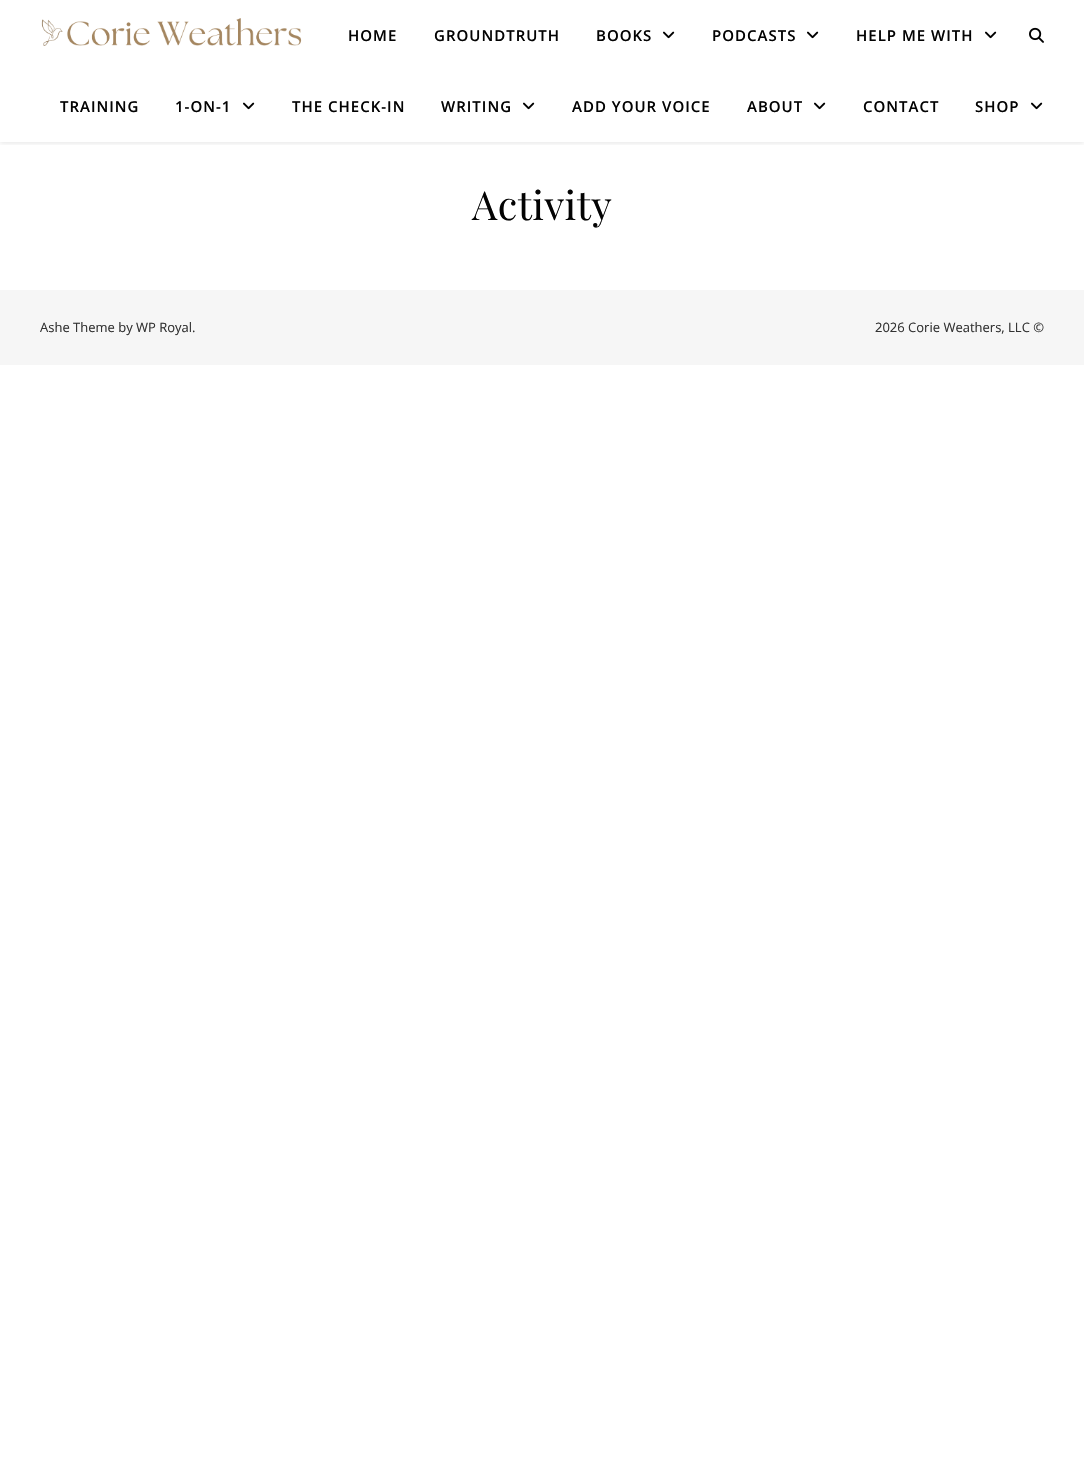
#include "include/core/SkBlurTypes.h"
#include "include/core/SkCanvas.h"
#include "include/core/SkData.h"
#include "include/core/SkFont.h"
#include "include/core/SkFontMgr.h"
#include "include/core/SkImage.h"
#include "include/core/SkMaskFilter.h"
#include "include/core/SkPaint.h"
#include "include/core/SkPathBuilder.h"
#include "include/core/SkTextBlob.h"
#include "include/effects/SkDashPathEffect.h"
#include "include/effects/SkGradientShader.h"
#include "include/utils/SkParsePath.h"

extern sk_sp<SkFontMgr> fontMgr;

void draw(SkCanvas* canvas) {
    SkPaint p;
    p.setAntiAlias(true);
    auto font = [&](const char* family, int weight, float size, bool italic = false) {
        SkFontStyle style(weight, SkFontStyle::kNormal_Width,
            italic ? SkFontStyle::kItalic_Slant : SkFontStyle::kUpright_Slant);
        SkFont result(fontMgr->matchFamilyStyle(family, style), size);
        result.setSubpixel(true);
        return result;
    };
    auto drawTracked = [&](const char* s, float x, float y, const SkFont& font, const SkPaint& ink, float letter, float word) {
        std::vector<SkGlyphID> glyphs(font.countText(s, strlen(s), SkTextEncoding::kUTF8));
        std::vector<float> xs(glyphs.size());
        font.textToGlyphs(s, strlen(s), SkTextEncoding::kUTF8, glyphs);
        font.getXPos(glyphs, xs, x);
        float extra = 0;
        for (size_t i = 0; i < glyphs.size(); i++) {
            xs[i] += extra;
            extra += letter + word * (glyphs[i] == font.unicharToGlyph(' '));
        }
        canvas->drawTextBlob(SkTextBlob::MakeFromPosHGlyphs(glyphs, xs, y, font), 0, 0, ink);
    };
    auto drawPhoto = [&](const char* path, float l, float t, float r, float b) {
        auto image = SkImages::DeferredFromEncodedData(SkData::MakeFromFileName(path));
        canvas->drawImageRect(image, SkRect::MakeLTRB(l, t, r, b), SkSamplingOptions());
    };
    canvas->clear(0xFFFFFFFF);
    canvas->save();
    canvas->clipRect(SkRect::MakeLTRB(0, 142, 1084, 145));
    p.setColor(0x1A000000);
    p.setMaskFilter(SkMaskFilter::MakeBlur(kNormal_SkBlurStyle, 2.5f));
    canvas->drawRect(SkRect::MakeLTRB(0, 1, 1084, 143), p);
    p.setMaskFilter(nullptr);
    canvas->restore();
    drawPhoto("media/1.png", 41, 18, 302, 46);
    drawPhoto("media/2.png", 1029, 27, 1044, 43);
    auto font1 = font("Open Sans", 600, 15);
    p.setColor(0xFF030303);
    {
        const struct { const char* s; float x, y; } items[] = {
            {"HOME", 348, 41},
            {"GROUNDTRUTH", 434, 41},
            {"BOOKS", 596, 41},
        };
        for (auto [s, x, y] : items) {
            drawTracked(s, x, y, font1, p, 1, 0);
        }
    }
    drawPhoto("media/3.png", 663, 31, 675, 39);
    drawTracked("PODCASTS", 712, 41, font1, p, 1, 0);
    drawPhoto("media/3.png", 807, 31, 819, 39);
    drawTracked("HELP ME WITH", 856, 41, font1, p, 1, 0);
    drawPhoto("media/3.png", 985, 31, 997, 39);
    drawTracked("TRAINING", 60, 112, font1, p, 1, 0);
    drawTracked("1-ON-1", 175, 112, font1, p, 1, 0);
    drawPhoto("media/3.png", 243, 102, 255, 110);
    drawTracked("THE CHECK-IN", 292, 112, font1, p, 1, 0);
    drawTracked("WRITING", 441, 112, font1, p, 1, 0);
    drawPhoto("media/3.png", 523, 102, 535, 110);
    drawTracked("ADD YOUR VOICE", 572, 112, font1, p, 1, 0);
    drawTracked("ABOUT", 747, 112, font1, p, 1, 0);
    drawPhoto("media/3.png", 814, 102, 826, 110);
    drawTracked("CONTACT", 863, 112, font1, p, 1, 0);
    drawTracked("SHOP", 975, 112, font1, p, 1, 0);
    drawPhoto("media/3.png", 1031, 102, 1043, 110);
    auto font2 = font("Playfair Display", 400, 40);
    drawTracked("Activity", 472, 220, font2, p, 0.5f, 0);
    p.setColor(0xFFF6F6F6);
    canvas->drawRect(SkRect::MakeLTRB(0, 290, 1084, 365), p);
    auto font3 = font("Open Sans", 400, 13);
    p.setColor(0xFF333333);
    canvas->drawString("Ashe Theme by WP Royal.", 40, 332, font3, p);
    canvas->drawString("2026 Corie Weathers, LLC ©", 875, 332, font3, p);
}
